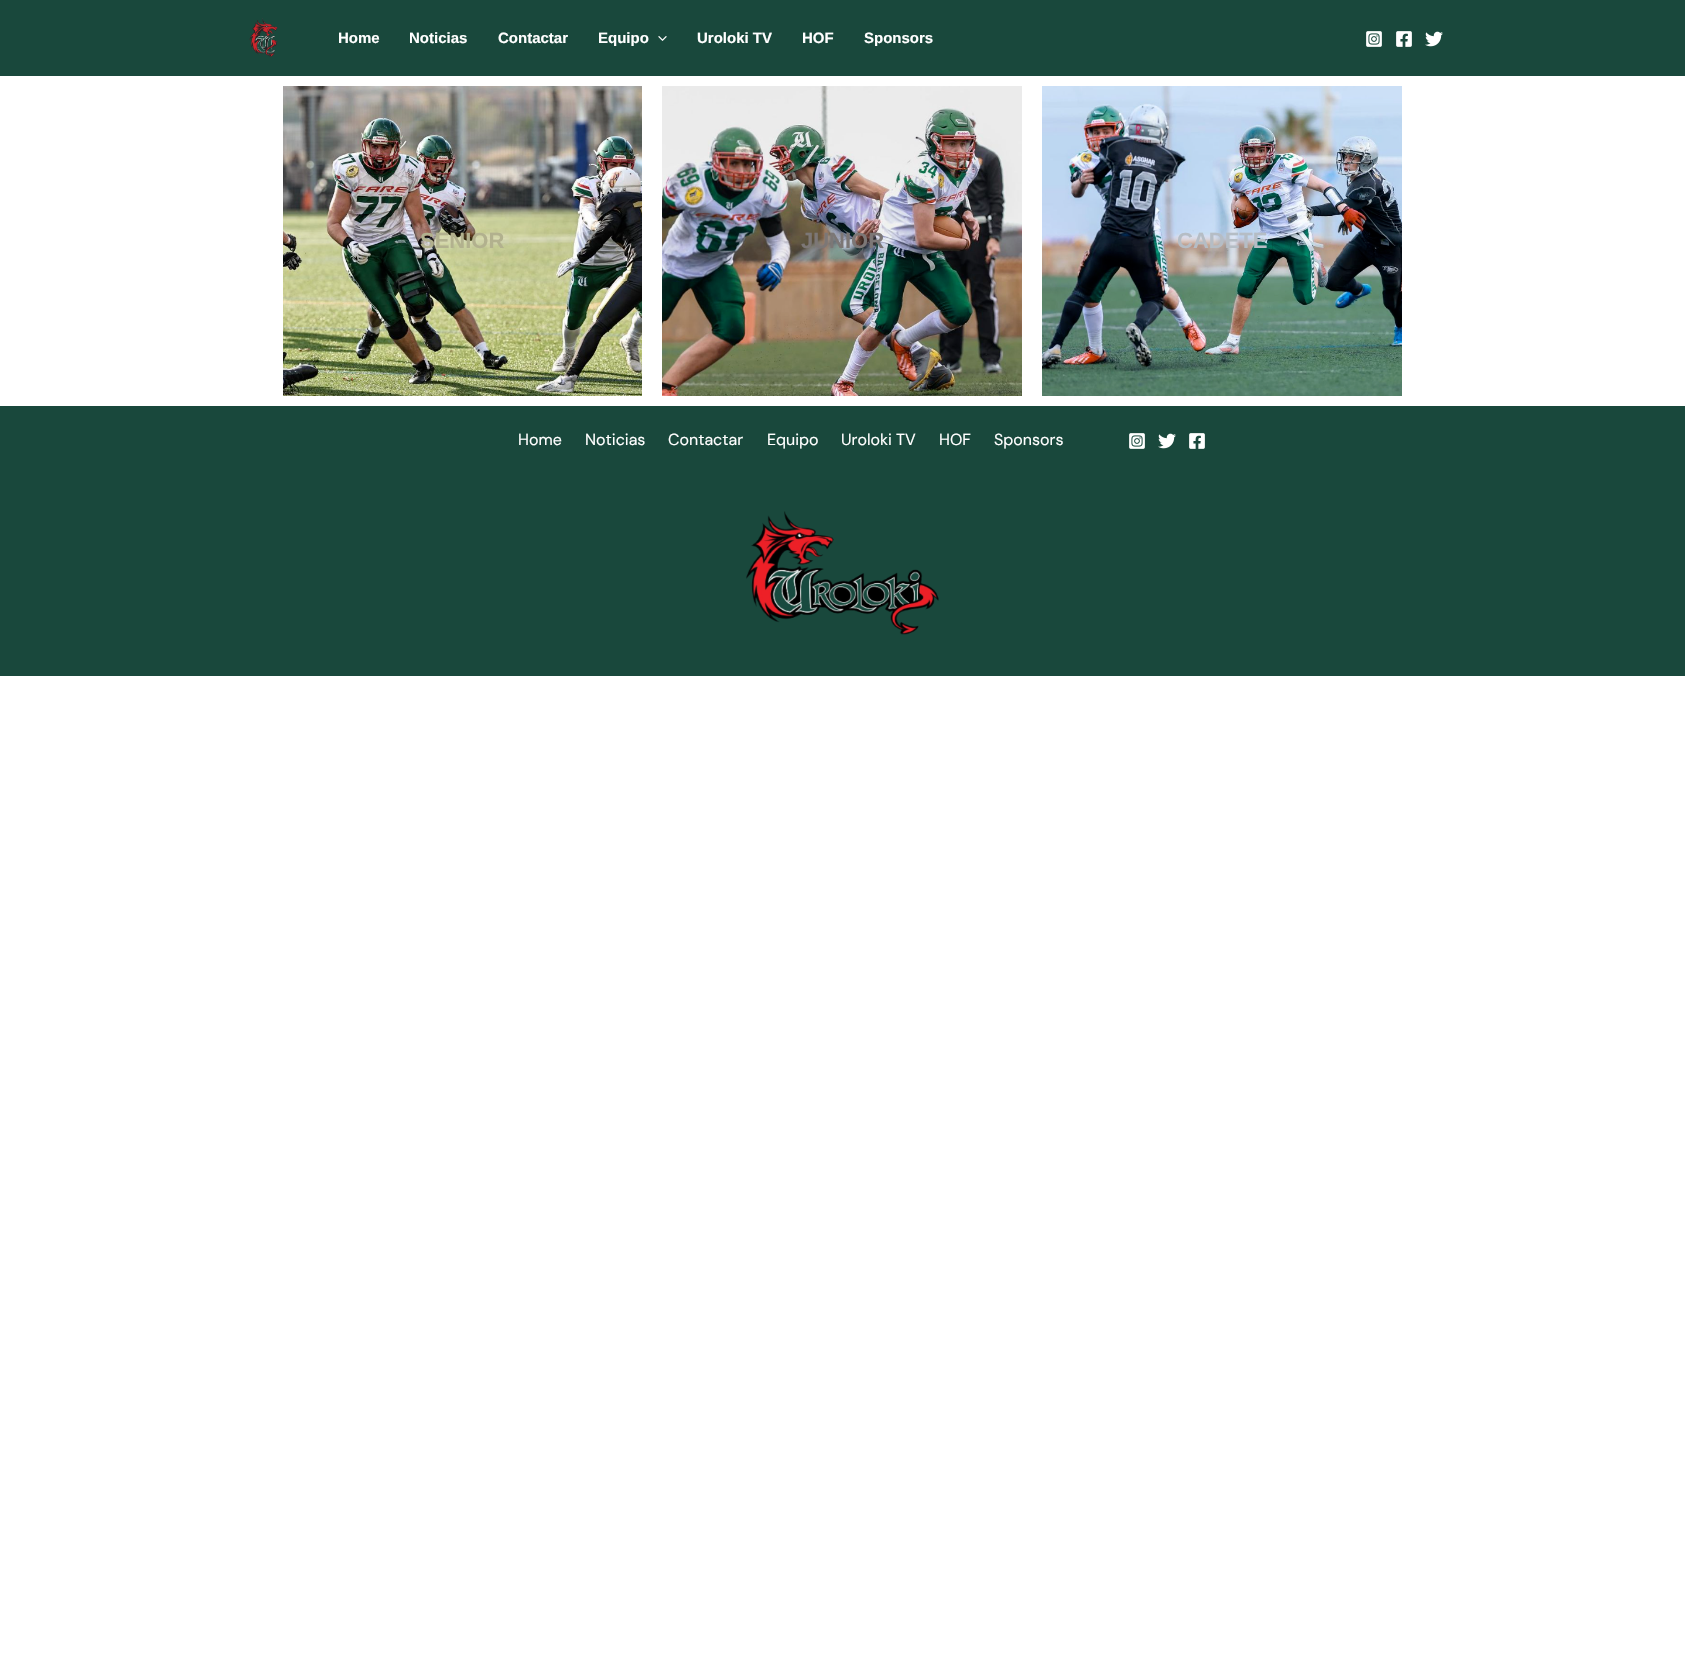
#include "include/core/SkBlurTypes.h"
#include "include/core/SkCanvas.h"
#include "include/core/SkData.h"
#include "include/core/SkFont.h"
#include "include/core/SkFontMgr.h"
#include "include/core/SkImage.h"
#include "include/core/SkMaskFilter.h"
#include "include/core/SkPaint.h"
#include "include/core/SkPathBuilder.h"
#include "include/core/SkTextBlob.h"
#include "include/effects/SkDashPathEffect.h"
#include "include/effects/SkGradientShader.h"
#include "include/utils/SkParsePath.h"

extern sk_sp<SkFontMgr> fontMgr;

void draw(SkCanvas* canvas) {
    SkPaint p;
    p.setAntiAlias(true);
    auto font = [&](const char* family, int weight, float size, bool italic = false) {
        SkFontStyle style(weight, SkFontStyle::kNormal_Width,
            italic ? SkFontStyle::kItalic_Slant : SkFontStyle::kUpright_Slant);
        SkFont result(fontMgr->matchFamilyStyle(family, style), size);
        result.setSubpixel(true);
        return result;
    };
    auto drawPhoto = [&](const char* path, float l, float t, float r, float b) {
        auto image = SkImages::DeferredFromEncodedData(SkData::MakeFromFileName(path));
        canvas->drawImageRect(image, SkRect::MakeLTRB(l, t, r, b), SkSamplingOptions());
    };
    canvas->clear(0xFFFFFFFF);
    p.setColor(0xFF19483C);
    canvas->drawRect(SkRect::MakeLTRB(0, 0, 1685, 76), p);
    drawPhoto("media/1.png", 249, 18, 278, 57);
    auto font1 = font("Liberation Sans", 700, 15);
    p.setColor(0xFFFFFFFF);
    {
        const struct { const char* s; float x, y; } items[] = {
            {"Home", 338, 43},
            {"Noticias", 409, 43},
            {"Contactar", 498, 43},
            {"Equipo", 598, 43},
        };
        for (auto [s, x, y] : items) {
            canvas->drawString(s, x, y, font1, p);
        }
    }
    drawPhoto("media/2.png", 658, 36, 667, 41);
    {
        const struct { const char* s; float x, y; } items[] = {
            {"Uroloki TV", 697, 43},
            {"HOF", 802, 43},
            {"Sponsors", 864, 43},
        };
        for (auto [s, x, y] : items) {
            canvas->drawString(s, x, y, font1, p);
        }
    }
    drawPhoto("media/3.png", 1366, 31, 1382, 47);
    drawPhoto("media/4.png", 1396, 31, 1412, 47);
    drawPhoto("media/5.png", 1425, 31, 1443, 47);
    drawPhoto("media/6.png", 283, 86, 642, 396);
    auto font2 = font("Liberation Sans", 700, 22);
    p.setColor(0xFFB2B18E);
    canvas->drawString("SENIOR", 420, 248, font2, p);
    drawPhoto("media/7.png", 662, 86, 1022, 396);
    p.setColor(0xFF7C7776);
    canvas->drawString("JUNIOR", 801, 248, font2, p);
    drawPhoto("media/8.png", 1042, 86, 1402, 396);
    p.setColor(0xFFB5BDC5);
    canvas->drawString("CADETE", 1177, 248, font2, p);
    p.setColor(0xFF19483C);
    canvas->drawRect(SkRect::MakeLTRB(0, 406, 1685, 676), p);
    auto font3 = font("DM Sans", 400, 16);
    p.setColor(0xFFFFFFFF);
    {
        const struct { const char* s; float x, y; } items[] = {
            {"Home", 518, 445},
            {"Noticias", 585, 445},
            {"Contactar", 668, 445},
            {"Equipo", 767, 445},
            {"Uroloki TV", 841, 445},
            {"HOF", 939, 445},
            {"Sponsors", 994, 445},
        };
        for (auto [s, x, y] : items) {
            canvas->drawString(s, x, y, font3, p);
        }
    }
    drawPhoto("media/3.png", 1129, 433, 1145, 449);
    drawPhoto("media/5.png", 1158, 433, 1176, 449);
    drawPhoto("media/4.png", 1189, 433, 1205, 449);
    drawPhoto("media/9.png", 746, 511, 939, 635);
}
